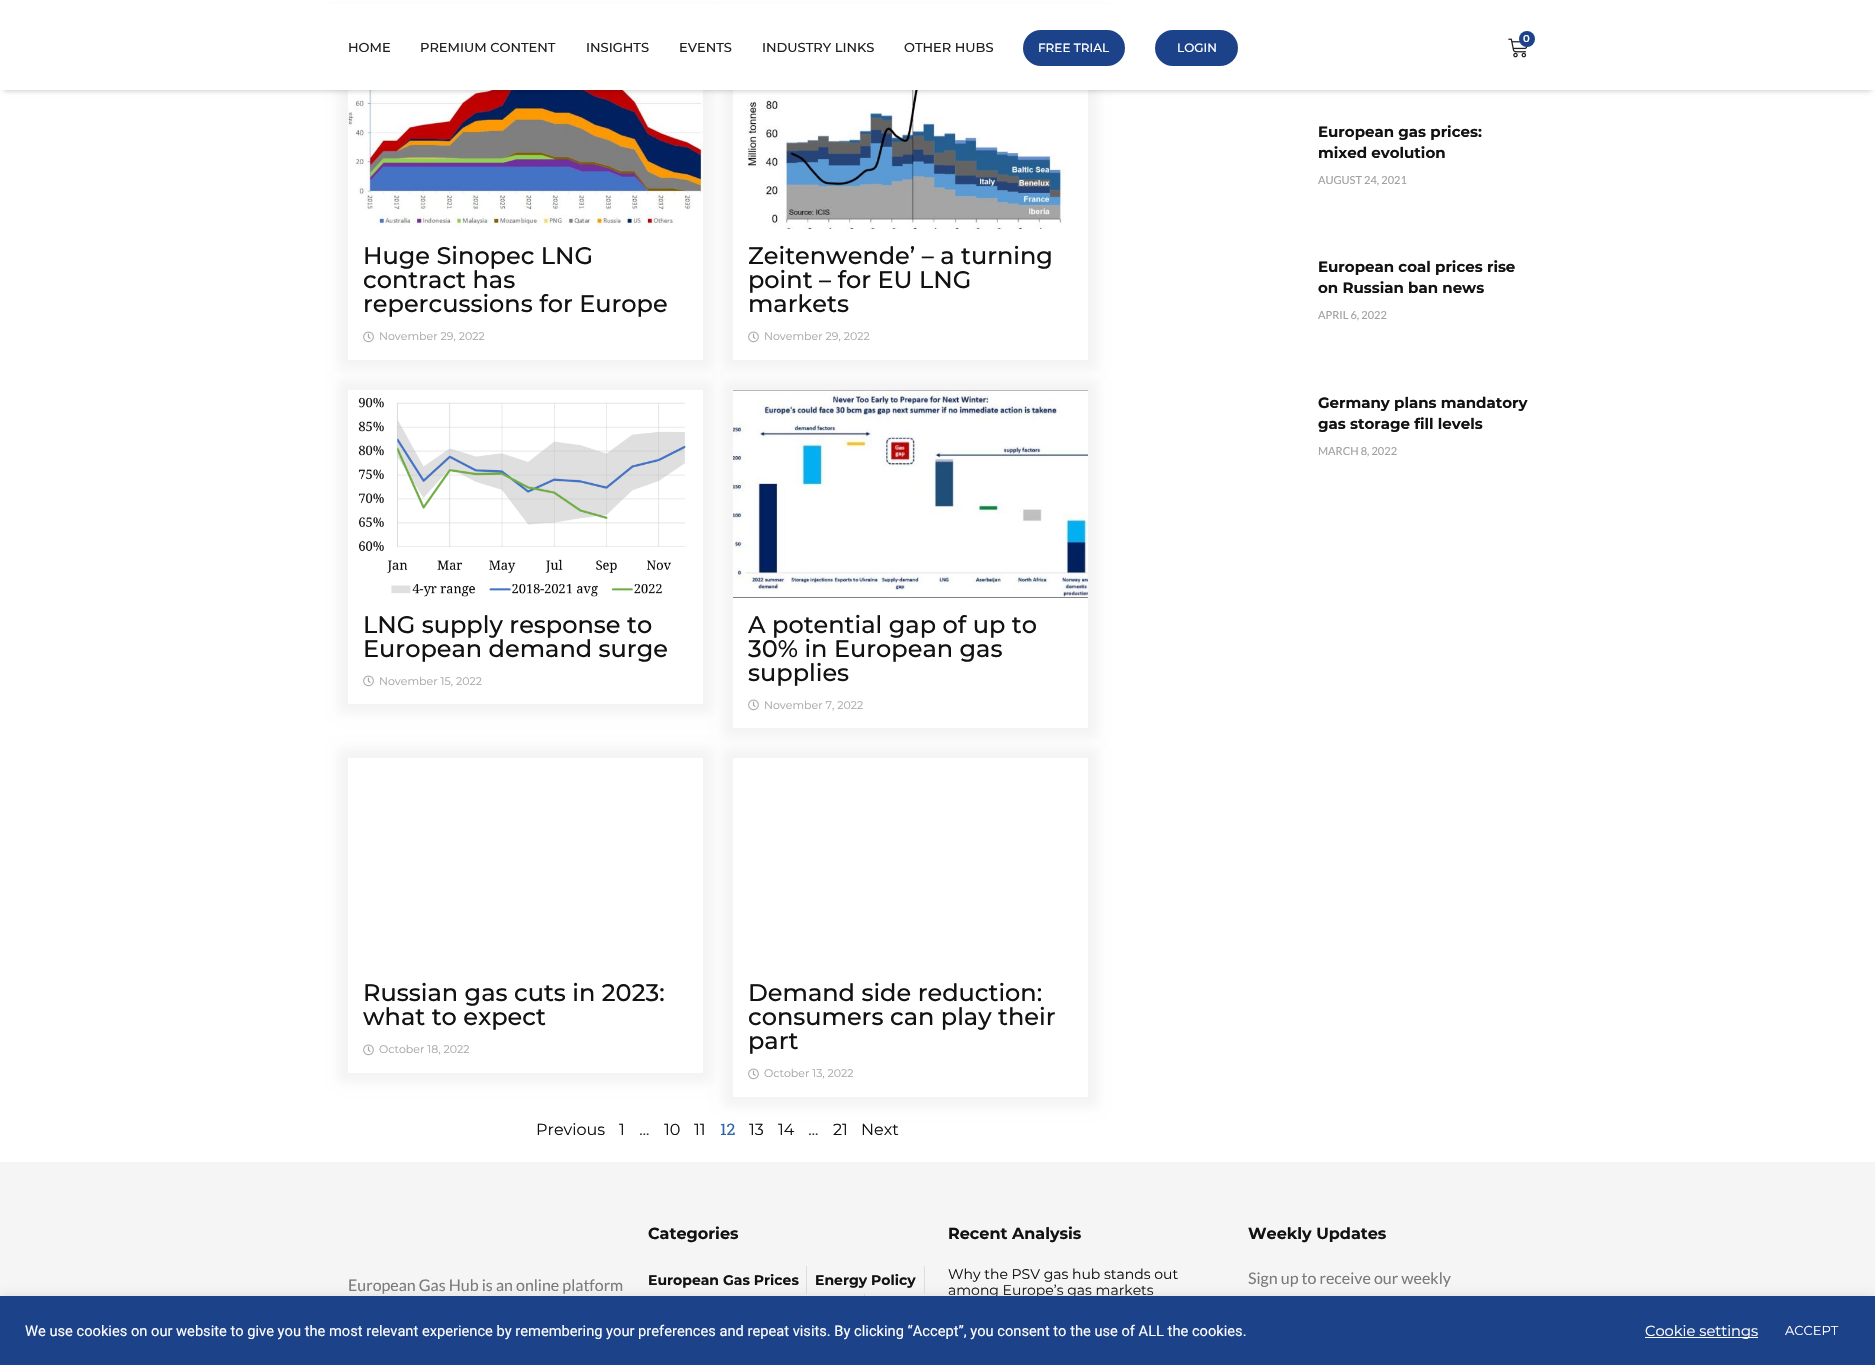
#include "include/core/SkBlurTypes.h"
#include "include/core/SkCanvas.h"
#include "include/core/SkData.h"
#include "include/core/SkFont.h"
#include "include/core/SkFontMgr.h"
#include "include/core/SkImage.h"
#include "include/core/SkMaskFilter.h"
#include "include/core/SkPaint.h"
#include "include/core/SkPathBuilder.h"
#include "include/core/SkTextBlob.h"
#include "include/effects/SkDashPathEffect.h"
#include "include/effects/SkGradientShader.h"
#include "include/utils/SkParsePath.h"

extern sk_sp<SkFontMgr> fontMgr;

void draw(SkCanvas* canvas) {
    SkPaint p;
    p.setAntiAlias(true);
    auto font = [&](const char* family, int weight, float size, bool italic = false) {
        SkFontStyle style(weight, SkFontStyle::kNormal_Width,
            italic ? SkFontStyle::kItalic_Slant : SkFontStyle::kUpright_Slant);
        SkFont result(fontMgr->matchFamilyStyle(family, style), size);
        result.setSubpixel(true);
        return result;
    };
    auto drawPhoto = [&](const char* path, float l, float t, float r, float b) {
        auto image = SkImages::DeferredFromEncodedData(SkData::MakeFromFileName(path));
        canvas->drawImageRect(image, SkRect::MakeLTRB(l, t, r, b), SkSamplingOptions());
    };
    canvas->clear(0xFFFFFFFF);
    canvas->save();
    canvas->clipPath(SkPathBuilder(SkPathFillType::kEvenOdd).moveTo(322, 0).lineTo(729, 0).lineTo(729, 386).lineTo(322, 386).close().moveTo(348, 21).lineTo(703, 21).lineTo(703, 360).lineTo(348, 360).close().detach(), true);
    p.setColor(0xFFF4F4F4);
    p.setMaskFilter(SkMaskFilter::MakeBlur(kNormal_SkBlurStyle, 5));
    canvas->drawRect(SkRect::MakeLTRB(338, 11, 713, 370), p);
    p.setMaskFilter(nullptr);
    canvas->restore();
    drawPhoto("media/2.png", 348, 90, 703, 229);
    canvas->save();
    canvas->clipPath(SkPathBuilder(SkPathFillType::kEvenOdd).moveTo(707, 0).lineTo(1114, 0).lineTo(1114, 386).lineTo(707, 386).close().moveTo(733, 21).lineTo(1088, 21).lineTo(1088, 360).lineTo(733, 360).close().detach(), true);
    p.setMaskFilter(SkMaskFilter::MakeBlur(kNormal_SkBlurStyle, 5));
    canvas->drawRect(SkRect::MakeLTRB(723, 11, 1098, 370), p);
    p.setMaskFilter(nullptr);
    canvas->restore();
    drawPhoto("media/4.png", 747, 90, 1065, 229);
    p.setColor(0x33000000);
    p.setMaskFilter(SkMaskFilter::MakeBlur(kNormal_SkBlurStyle, 2.5f));
    canvas->drawRect(SkRect::MakeLTRB(4, 9, 1871, 91), p);
    p.setMaskFilter(nullptr);
    p.setColor(0xFFFFFFFF);
    canvas->drawRect(SkRect::MakeLTRB(0, 4, 1875, 90), p);
    drawPhoto("media/1.png", 1508, 38, 1528, 58);
    p.setColor(0xFF1C4289);
    canvas->drawCircle(1527, 39, 8, p);
    auto font1 = font("Montserrat", 600, 10);
    p.setColor(0xFFFFFFFF);
    canvas->drawString("0", 1523, 42, font1, p);
    auto font2 = font("Montserrat", 500, 13);
    p.setColor(0xFF212121);
    {
        const struct { const char* s; float x, y; } items[] = {
            {"HOME", 348, 52},
            {"PREMIUM CONTENT", 420, 52},
            {"INSIGHTS", 586, 52},
            {"EVENTS", 679, 52},
            {"INDUSTRY LINKS", 762, 52},
            {"OTHER HUBS", 904, 52},
        };
        for (auto [s, x, y] : items) {
            canvas->drawString(s, x, y, font2, p);
        }
    }
    p.setColor(0xFF1C4289);
    canvas->drawRoundRect(SkRect::MakeLTRB(1023, 30, 1125, 66), 18, 18, p);
    auto font3 = font("Montserrat", 500, 12);
    p.setColor(0xFFFFFFFF);
    canvas->drawString("FREE TRIAL", 1038, 52, font3, p);
    p.setColor(0xFF1C4289);
    canvas->drawRoundRect(SkRect::MakeLTRB(1155, 30, 1238, 66), 18, 18, p);
    p.setColor(0xFFFFFFFF);
    canvas->drawString("LOGIN", 1177, 52, font3, p);
    auto font4 = font("Montserrat", 500, 24);
    p.setColor(0xFF121212);
    {
        const struct { const char* s; float x, y; } items[] = {
            {"Huge Sinopec LNG", 363, 264},
            {"contract has", 363, 288},
            {"repercussions for Europe", 363, 312},
        };
        for (auto [s, x, y] : items) {
            canvas->drawString(s, x, y, font4, p);
        }
    }
    drawPhoto("media/3.png", 363, 331, 374, 343);
    auto font5 = font("Montserrat", 400, 11);
    p.setColor(0xFFA8A8AA);
    canvas->drawString("November 29, 2022", 379, 340, font5, p);
    p.setColor(0xFF121212);
    {
        const struct { const char* s; float x, y; } items[] = {
            {"Zeitenwende’ – a turning", 748, 264},
            {"point – for EU LNG", 748, 288},
            {"markets", 748, 312},
        };
        for (auto [s, x, y] : items) {
            canvas->drawString(s, x, y, font4, p);
        }
    }
    drawPhoto("media/3.png", 748, 331, 759, 343);
    p.setColor(0xFFA8A8AA);
    canvas->drawString("November 29, 2022", 764, 340, font5, p);
    canvas->save();
    canvas->clipPath(SkPathBuilder(SkPathFillType::kEvenOdd).moveTo(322, 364).lineTo(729, 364).lineTo(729, 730).lineTo(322, 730).close().moveTo(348, 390).lineTo(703, 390).lineTo(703, 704).lineTo(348, 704).close().detach(), true);
    p.setColor(0xFFF4F4F4);
    p.setMaskFilter(SkMaskFilter::MakeBlur(kNormal_SkBlurStyle, 5));
    canvas->drawRect(SkRect::MakeLTRB(338, 380, 713, 714), p);
    p.setMaskFilter(nullptr);
    canvas->restore();
    drawPhoto("media/5.png", 358, 397, 686, 597);
    p.setColor(0xFF121212);
    canvas->drawString("LNG supply response to", 363, 633, font4, p);
    canvas->drawString("European demand surge", 363, 657, font4, p);
    drawPhoto("media/3.png", 363, 675, 374, 687);
    p.setColor(0xFFA8A8AA);
    canvas->drawString("November 15, 2022", 379, 685, font5, p);
    canvas->save();
    canvas->clipPath(SkPathBuilder(SkPathFillType::kEvenOdd).moveTo(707, 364).lineTo(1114, 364).lineTo(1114, 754).lineTo(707, 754).close().moveTo(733, 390).lineTo(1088, 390).lineTo(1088, 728).lineTo(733, 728).close().detach(), true);
    p.setColor(0xFFF4F4F4);
    p.setMaskFilter(SkMaskFilter::MakeBlur(kNormal_SkBlurStyle, 5));
    canvas->drawRect(SkRect::MakeLTRB(723, 380, 1098, 738), p);
    p.setMaskFilter(nullptr);
    canvas->restore();
    drawPhoto("media/6.png", 733, 390, 1088, 598);
    p.setColor(0xFF121212);
    {
        const struct { const char* s; float x, y; } items[] = {
            {"A potential gap of up to", 748, 633},
            {"30% in European gas", 748, 657},
            {"supplies", 748, 681},
        };
        for (auto [s, x, y] : items) {
            canvas->drawString(s, x, y, font4, p);
        }
    }
    drawPhoto("media/3.png", 748, 699, 759, 711);
    p.setColor(0xFFA8A8AA);
    canvas->drawString("November 7, 2022", 764, 709, font5, p);
    canvas->save();
    canvas->clipPath(SkPathBuilder(SkPathFillType::kEvenOdd).moveTo(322, 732).lineTo(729, 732).lineTo(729, 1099).lineTo(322, 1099).close().moveTo(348, 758).lineTo(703, 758).lineTo(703, 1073).lineTo(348, 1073).close().detach(), true);
    p.setColor(0xFFF4F4F4);
    p.setMaskFilter(SkMaskFilter::MakeBlur(kNormal_SkBlurStyle, 5));
    canvas->drawRect(SkRect::MakeLTRB(338, 748, 713, 1083), p);
    p.setMaskFilter(nullptr);
    canvas->restore();
    p.setColor(0xFF121212);
    canvas->drawString("Russian gas cuts in 2023:", 363, 1001, font4, p);
    canvas->drawString("what to expect", 363, 1025, font4, p);
    drawPhoto("media/3.png", 363, 1044, 374, 1056);
    p.setColor(0xFFA8A8AA);
    canvas->drawString("October 18, 2022", 379, 1053, font5, p);
    canvas->save();
    canvas->clipPath(SkPathBuilder(SkPathFillType::kEvenOdd).moveTo(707, 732).lineTo(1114, 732).lineTo(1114, 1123).lineTo(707, 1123).close().moveTo(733, 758).lineTo(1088, 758).lineTo(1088, 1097).lineTo(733, 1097).close().detach(), true);
    p.setColor(0xFFF4F4F4);
    p.setMaskFilter(SkMaskFilter::MakeBlur(kNormal_SkBlurStyle, 5));
    canvas->drawRect(SkRect::MakeLTRB(723, 748, 1098, 1107), p);
    p.setMaskFilter(nullptr);
    canvas->restore();
    p.setColor(0xFF121212);
    {
        const struct { const char* s; float x, y; } items[] = {
            {"Demand side reduction:", 748, 1001},
            {"consumers can play their", 748, 1025},
            {"part", 748, 1049},
        };
        for (auto [s, x, y] : items) {
            canvas->drawString(s, x, y, font4, p);
        }
    }
    drawPhoto("media/3.png", 748, 1068, 759, 1080);
    p.setColor(0xFFA8A8AA);
    canvas->drawString("October 13, 2022", 764, 1077, font5, p);
    auto font6 = font("Montserrat", 400, 16);
    p.setColor(0xFF121212);
    canvas->drawString("Previous", 536, 1135, font6, p);
    canvas->drawString("1", 619, 1135, font6, p);
    auto font7 = font("Roboto Slab", 400, 16);
    p.setColor(0xFF333333);
    canvas->drawString("…", 639, 1135, font7, p);
    p.setColor(0xFF121212);
    canvas->drawString("10", 664, 1135, font6, p);
    canvas->drawString("11", 694, 1135, font6, p);
    p.setColor(0xFF2D65A9);
    canvas->drawString("12", 720, 1135, font7, p);
    p.setColor(0xFF121212);
    canvas->drawString("13", 749, 1135, font6, p);
    canvas->drawString("14", 778, 1135, font6, p);
    p.setColor(0xFF333333);
    canvas->drawString("…", 808, 1135, font7, p);
    p.setColor(0xFF121212);
    canvas->drawString("21", 833, 1135, font6, p);
    canvas->drawString("Next", 861, 1135, font6, p);
    auto font8 = font("Montserrat", 700, 15);
    canvas->drawString("European gas prices:", 1318, 137, font8, p);
    canvas->drawString("mixed evolution", 1318, 158, font8, p);
    auto font9 = font("Lato", 400, 11);
    p.setColor(0xFFA0A0A0);
    canvas->drawString("AUGUST 24, 2021", 1318, 184, font9, p);
    p.setColor(0xFF121212);
    canvas->drawString("European coal prices rise", 1318, 272, font8, p);
    canvas->drawString("on Russian ban news", 1318, 293, font8, p);
    p.setColor(0xFFA0A0A0);
    canvas->drawString("APRIL 6, 2022", 1318, 319, font9, p);
    p.setColor(0xFF121212);
    canvas->drawString("Germany plans mandatory", 1318, 408, font8, p);
    canvas->drawString("gas storage fill levels", 1318, 429, font8, p);
    p.setColor(0xFFA0A0A0);
    canvas->drawString("MARCH 8, 2022", 1318, 455, font9, p);
    p.setColor(0xFFF5F5F5);
    canvas->drawRect(SkRect::MakeLTRB(0, 1162, 1875, 1296), p);
    auto font10 = font("Lato", 400, 16);
    p.setColor(0xFF7A7A7A);
    canvas->drawString("European Gas Hub is an online platform", 348, 1291, font10, p);
    auto font11 = font("Montserrat", 700, 16);
    p.setColor(0xFF121212);
    canvas->drawString("Categories", 648, 1239, font11, p);
    auto font12 = font("Montserrat", 700, 14);
    canvas->drawString("European Gas Prices", 648, 1285, font12, p);
    p.setColor(0xFFDDDDDD);
    canvas->drawRect(SkRect::MakeLTRB(806, 1266, 807, 1294), p);
    p.setColor(0xFF121212);
    canvas->drawString("Energy Policy", 815, 1285, font12, p);
    p.setColor(0xFFDDDDDD);
    canvas->drawRect(SkRect::MakeLTRB(924, 1266, 925, 1294), p);
    canvas->drawRect(SkRect::MakeLTRB(864, 1294, 865, 1296), p);
    p.setColor(0xFF121212);
    canvas->drawString("Recent Analysis", 948, 1239, font11, p);
    auto font13 = font("Montserrat", 400, 14);
    canvas->drawString("Why the PSV gas hub stands out", 948, 1279, font13, p);
    canvas->drawString("among Europe’s gas markets", 948, 1295, font13, p);
    canvas->drawString("Weekly Updates", 1248, 1239, font11, p);
    p.setColor(0xFF7A7A7A);
    canvas->drawString("Sign up to receive our weekly", 1248, 1284, font10, p);
    p.setColor(0x4DACABAB);
    p.setMaskFilter(SkMaskFilter::MakeBlur(kNormal_SkBlurStyle, 5));
    canvas->drawRect(SkRect::MakeLTRB(0, 1295, 1875, 1364), p);
    p.setMaskFilter(nullptr);
    p.setColor(0xFF1C4289);
    canvas->drawRect(SkRect::MakeLTRB(0, 1296, 1875, 1365), p);
    auto font14 = font("Roboto", 400, 14.67f);
    p.setColor(0xFFFFFFFF);
    canvas->drawString("We use cookies on our website to give you the most relevant experience by remembering your preferences and repeat visits. By clicking “Accept”, you consent to the use of ALL the cookies.", 25, 1336, font14, p);
    canvas->drawRect(SkRect::MakeLTRB(1645, 1337, 1758, 1338), p);
    auto font15 = font("Montserrat", 400, 14.67f);
    canvas->drawString("Cookie settings", 1645, 1336, font15, p);
    auto font16 = font("Montserrat", 400, 13);
    canvas->drawString("ACCEPT", 1785, 1335, font16, p);
}
